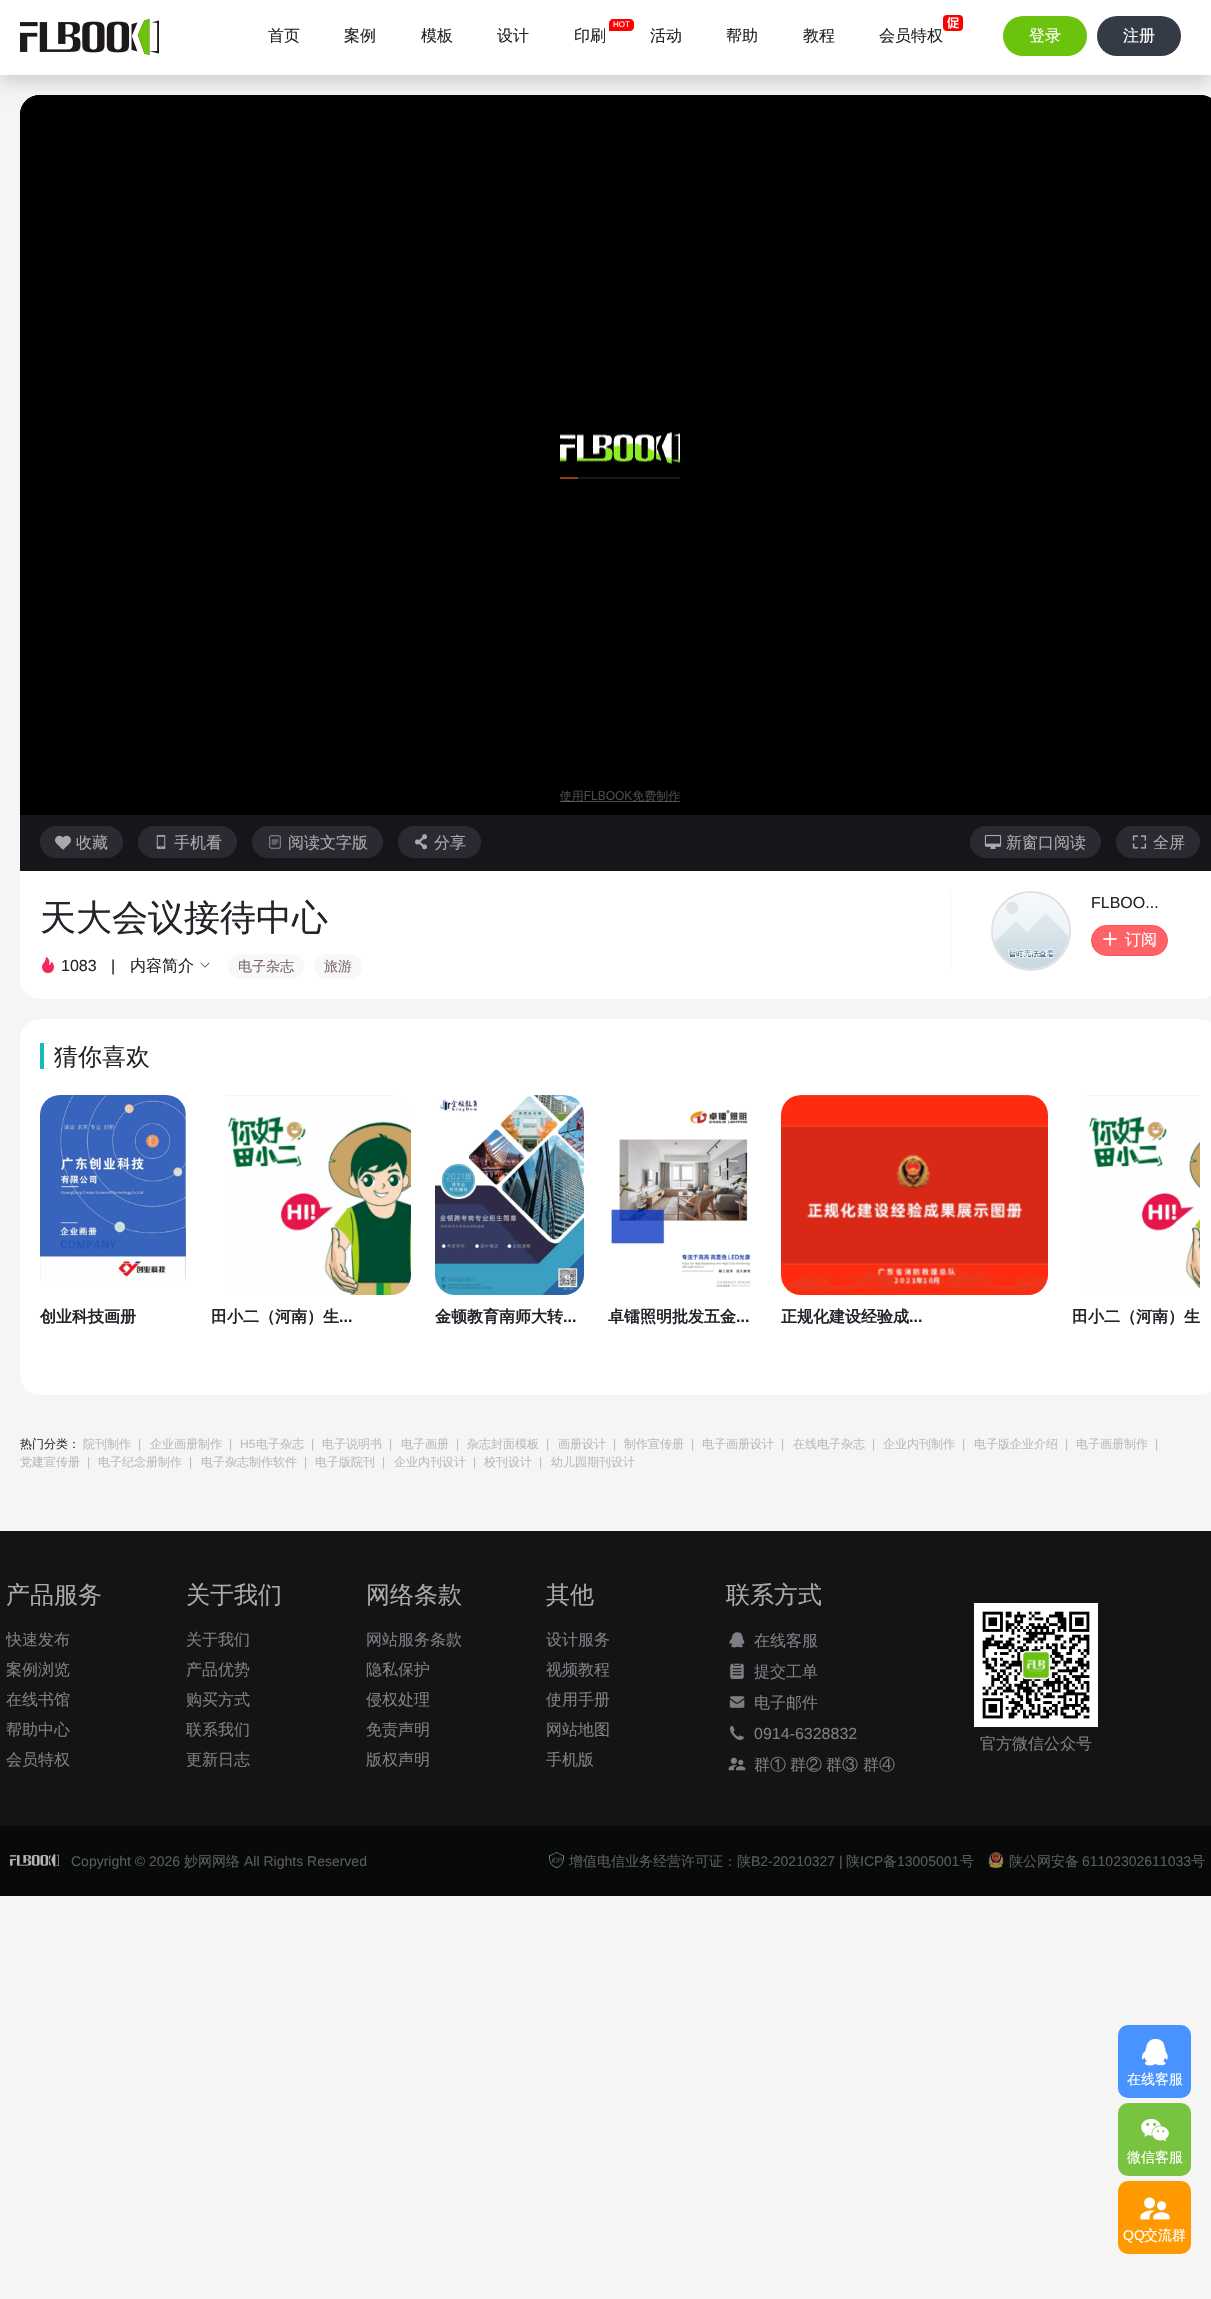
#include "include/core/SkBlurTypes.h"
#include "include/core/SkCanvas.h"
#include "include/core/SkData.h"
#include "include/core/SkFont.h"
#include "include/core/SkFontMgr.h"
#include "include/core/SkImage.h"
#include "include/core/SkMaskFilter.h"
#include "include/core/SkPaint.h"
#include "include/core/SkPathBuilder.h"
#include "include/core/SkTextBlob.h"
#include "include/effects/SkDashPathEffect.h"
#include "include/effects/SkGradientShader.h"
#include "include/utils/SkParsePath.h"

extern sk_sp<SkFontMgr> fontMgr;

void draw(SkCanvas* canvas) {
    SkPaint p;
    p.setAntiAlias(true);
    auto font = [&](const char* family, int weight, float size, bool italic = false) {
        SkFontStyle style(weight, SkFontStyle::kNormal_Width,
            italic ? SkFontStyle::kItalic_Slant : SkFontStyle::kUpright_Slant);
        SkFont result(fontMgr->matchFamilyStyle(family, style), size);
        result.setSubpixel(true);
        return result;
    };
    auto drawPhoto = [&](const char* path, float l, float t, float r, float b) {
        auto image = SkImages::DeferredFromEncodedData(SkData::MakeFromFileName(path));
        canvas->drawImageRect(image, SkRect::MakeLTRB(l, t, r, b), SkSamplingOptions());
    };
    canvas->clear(0xFFF5F5F5);
    p.setColor(0xFF000000);
    canvas->drawPath(SkPathBuilder().moveTo(40, 95).lineTo(1200, 95).cubicTo(1211, 95, 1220, 104, 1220, 115).lineTo(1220, 871).lineTo(20, 871).lineTo(20, 115).cubicTo(20, 104, 29, 95, 40, 95).close().detach(), p);
    drawPhoto("media/3.png", 20, 95, 1211, 802);
    p.setColor(0x26000000);
    p.setMaskFilter(SkMaskFilter::MakeBlur(kNormal_SkBlurStyle, 8));
    canvas->drawRect(SkRect::MakeLTRB(0, 8, 1211, 83), p);
    p.setMaskFilter(nullptr);
    p.setColor(0xFFFFFFFF);
    canvas->drawRect(SkRect::MakeLTRB(0, 0, 1211, 75), p);
    drawPhoto("media/1.png", 20, 19, 159, 55);
    auto font1 = font("WenQuanYi Zen Hei", 500, 16);
    p.setColor(0xFF212529);
    {
        const struct { const char* s; float x, y; } items[] = {
            {"首页", 268, 41},
            {"案例", 344, 41},
            {"模板", 421, 41},
            {"设计", 497, 41},
        };
        for (auto [s, x, y] : items) {
            canvas->drawString(s, x, y, font1, p);
        }
    }
    p.setColor(0xFFFF0000);
    canvas->drawPath(SkPathBuilder().moveTo(613, 19).lineTo(630, 19).cubicTo(632, 19, 634, 21, 634, 23).lineTo(634, 27).cubicTo(634, 29, 632, 31, 630, 31).lineTo(609, 31).lineTo(609, 23).cubicTo(609, 21, 611, 19, 613, 19).close().detach(), p);
    auto font2 = font("Liberation Sans", 400, 8);
    p.setColor(0xFFFFFFFF);
    canvas->drawString("HOT", 613, 27, font2, p);
    p.setColor(0xFF212529);
    {
        const struct { const char* s; float x, y; } items[] = {
            {"印刷", 574, 41},
            {"活动", 650, 41},
            {"帮助", 726, 41},
            {"教程", 803, 41},
        };
        for (auto [s, x, y] : items) {
            canvas->drawString(s, x, y, font1, p);
        }
    }
    p.setColor(0xFFFF0000);
    canvas->drawRoundRect(SkRect::MakeLTRB(943, 15, 963, 31), 4, 4, p);
    drawPhoto("media/2.png", 947, 17, 959, 29);
    p.setColor(0xFF212529);
    canvas->drawString("会员特权", 879, 41, font1, p);
    p.setColor(0xFF6BC30D);
    canvas->drawRoundRect(SkRect::MakeLTRB(1003, 16, 1087, 56), 20, 20, p);
    p.setColor(0xFFFFFFFF);
    canvas->drawString("登录", 1029, 41, font1, p);
    p.setColor(0xFF343B46);
    canvas->drawRoundRect(SkRect::MakeLTRB(1097, 16, 1181, 56), 20, 20, p);
    p.setColor(0xFFFFFFFF);
    canvas->drawString("注册", 1123, 41, font1, p);
    p.setColor(0xFF16161A);
    canvas->drawRect(SkRect::MakeLTRB(20, 815, 1211, 871), p);
    p.setColor(0xFF2A2A32);
    canvas->drawRoundRect(SkRect::MakeLTRB(40, 826, 123, 858), 16, 16, p);
    drawPhoto("media/4.png", 55, 835, 71, 850);
    p.setColor(0xFFAAAAAD);
    canvas->drawString("收藏", 76, 848, font1, p);
    p.setColor(0xFF2A2A32);
    canvas->drawRoundRect(SkRect::MakeLTRB(138, 826, 237, 858), 16, 16, p);
    drawPhoto("media/5.png", 156, 835, 166, 849);
    p.setColor(0xFFAAAAAD);
    canvas->drawString("手机看", 174, 848, font1, p);
    p.setColor(0xFF2A2A32);
    canvas->drawRoundRect(SkRect::MakeLTRB(252, 826, 383, 858), 16, 16, p);
    drawPhoto("media/6.png", 269, 835, 281, 849);
    p.setColor(0xFFAAAAAD);
    canvas->drawString("阅读文字版", 288, 848, font1, p);
    p.setColor(0xFF2A2A32);
    canvas->drawRoundRect(SkRect::MakeLTRB(398, 826, 481, 858), 16, 16, p);
    drawPhoto("media/7.png", 415, 834, 427, 850);
    p.setColor(0xFFAAAAAD);
    canvas->drawString("分享", 434, 848, font1, p);
    p.setColor(0xFF2A2A32);
    canvas->drawRoundRect(SkRect::MakeLTRB(970, 826, 1101, 858), 16, 16, p);
    drawPhoto("media/8.png", 984, 835, 1002, 849);
    p.setColor(0xFFAAAAAD);
    canvas->drawString("新窗口阅读", 1006, 848, font1, p);
    p.setColor(0xFF2A2A32);
    canvas->drawRoundRect(SkRect::MakeLTRB(1116, 826, 1200, 858), 16, 16, p);
    drawPhoto("media/9.png", 1132, 835, 1147, 849);
    p.setColor(0xFFAAAAAD);
    canvas->drawString("全屏", 1153, 848, font1, p);
    p.setColor(0xFFFFFFFF);
    canvas->drawPath(SkPathBuilder().moveTo(20, 871).lineTo(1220, 871).lineTo(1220, 979).cubicTo(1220, 990, 1211, 999, 1200, 999).lineTo(40, 999).cubicTo(29, 999, 20, 990, 20, 979).close().detach(), p);
    auto font3 = font("WenQuanYi Zen Hei", 500, 36);
    p.setColor(0xFF212529);
    canvas->drawString("天大会议接待中心", 40, 930, font3, p);
    p.setColor(0xFFF5F5F5);
    canvas->drawRect(SkRect::MakeLTRB(950, 891, 951, 971), p);
    p.setStyle(SkPaint::kStroke_Style);
    p.setStrokeWidth(2);
    p.setColor(0xFFE0E0E0);
    canvas->drawCircle(1031, 931, 39, p);
    drawPhoto("media/10.png", 993, 893, 1069, 969);
    auto font4 = font("Liberation Sans", 400, 16);
    p.setStyle(SkPaint::kFill_Style);
    p.setColor(0xFF212529);
    canvas->drawString("FLBOO...", 1091, 908, font4, p);
    p.setColor(0xFFFF6267);
    canvas->drawRoundRect(SkRect::MakeLTRB(1091.5f, 925.5f, 1167.5f, 955.5f), 15, 15, p);
    p.setStyle(SkPaint::kStroke_Style);
    p.setStrokeWidth(1);
    p.setColor(0xFFFA5052);
    canvas->drawRoundRect(SkRect::MakeLTRB(1091.5f, 925.5f, 1167.5f, 955.5f), 15, 15, p);
    drawPhoto("media/11.png", 1103, 932, 1117, 946);
    p.setStyle(SkPaint::kFill_Style);
    p.setColor(0xFFFFFFFF);
    canvas->drawString("订阅", 1125, 945, font1, p);
    drawPhoto("media/12.png", 42, 957, 54, 973);
    p.setColor(0xFF212529);
    canvas->drawString("1083", 61, 971, font4, p);
    canvas->drawString("|", 111, 971, font4, p);
    canvas->drawString("内容简介", 130, 971, font1, p);
    drawPhoto("media/13.png", 200, 962, 210, 968);
    p.setColor(0xFFF8F8F8);
    canvas->drawRoundRect(SkRect::MakeLTRB(228, 954, 304, 979), 12.5f, 12.5f, p);
    auto font5 = font("WenQuanYi Zen Hei", 500, 14);
    p.setColor(0xFF7E6666);
    canvas->drawString("电子杂志", 238, 971, font5, p);
    p.setColor(0xFFF8F8F8);
    canvas->drawRoundRect(SkRect::MakeLTRB(314, 954, 362, 979), 12.5f, 12.5f, p);
    p.setColor(0xFF7E6666);
    canvas->drawString("旅游", 324, 971, font5, p);
    p.setColor(0xFFFFFFFF);
    canvas->drawRoundRect(SkRect::MakeLTRB(20, 1019, 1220, 1395), 20, 20, p);
    p.setColor(0xFF19B8BB);
    canvas->drawRect(SkRect::MakeLTRB(40, 1043, 44, 1069), p);
    auto font6 = font("WenQuanYi Zen Hei", 500, 24);
    p.setColor(0xFF212529);
    canvas->drawString("猜你喜欢", 54, 1065, font6, p);
    drawPhoto("media/14.png", 40, 1095, 186, 1281);
    auto font7 = font("WenQuanYi Zen Hei", 700, 16);
    canvas->drawString("创业科技画册", 40, 1322, font7, p);
    drawPhoto("media/15.png", 226, 1095, 411, 1295);
    canvas->drawString("田小二（河南）生", 211, 1322, font7, p);
    auto font8 = font("Liberation Sans", 700, 16);
    canvas->drawString("...", 339, 1322, font8, p);
    drawPhoto("media/16.png", 435, 1095, 584, 1295);
    canvas->drawString("金顿教育南师大转", 435, 1322, font7, p);
    canvas->drawString("...", 563, 1322, font8, p);
    drawPhoto("media/17.png", 611, 1110, 751, 1287);
    canvas->drawString("卓镭照明批发五金", 608, 1322, font7, p);
    canvas->drawString("...", 736, 1322, font8, p);
    drawPhoto("media/18.png", 781, 1095, 1048, 1295);
    canvas->drawString("正规化建设经验成", 781, 1322, font7, p);
    canvas->drawString("...", 909, 1322, font8, p);
    drawPhoto("media/19.png", 1087, 1095, 1200, 1289);
    canvas->drawString("田小二（河南）生", 1072, 1322, font7, p);
    auto font9 = font("WenQuanYi Zen Hei", 500, 12);
    p.setColor(0xFF313131);
    canvas->drawString("热门分类：", 20, 1448, font9, p);
    p.setColor(0xFFBABABA);
    canvas->drawString("院刊制作", 83, 1448, font9, p);
    auto font10 = font("Liberation Sans", 400, 12);
    canvas->drawString("|", 138, 1448, font10, p);
    canvas->drawString("企业画册制作", 150, 1448, font9, p);
    canvas->drawString("|", 229, 1448, font10, p);
    canvas->drawString("H5", 240, 1448, font10, p);
    canvas->drawString("电子杂志", 256, 1448, font9, p);
    canvas->drawString("|", 311, 1448, font10, p);
    canvas->drawString("电子说明书", 322, 1448, font9, p);
    canvas->drawString("|", 389, 1448, font10, p);
    canvas->drawString("电子画册", 401, 1448, font9, p);
    canvas->drawString("|", 456, 1448, font10, p);
    canvas->drawString("杂志封面模板", 467, 1448, font9, p);
    canvas->drawString("|", 546, 1448, font10, p);
    canvas->drawString("画册设计", 558, 1448, font9, p);
    canvas->drawString("|", 613, 1448, font10, p);
    canvas->drawString("制作宣传册", 624, 1448, font9, p);
    canvas->drawString("|", 691, 1448, font10, p);
    canvas->drawString("电子画册设计", 702, 1448, font9, p);
    canvas->drawString("|", 781, 1448, font10, p);
    canvas->drawString("在线电子杂志", 793, 1448, font9, p);
    canvas->drawString("|", 872, 1448, font10, p);
    canvas->drawString("企业内刊制作", 883, 1448, font9, p);
    canvas->drawString("|", 962, 1448, font10, p);
    canvas->drawString("电子版企业介绍", 974, 1448, font9, p);
    canvas->drawString("|", 1065, 1448, font10, p);
    canvas->drawString("电子画册制作", 1076, 1448, font9, p);
    canvas->drawString("|", 1155, 1448, font10, p);
    canvas->drawString("党建宣传册", 20, 1466, font9, p);
    canvas->drawString("|", 87, 1466, font10, p);
    canvas->drawString("电子纪念册制作", 98, 1466, font9, p);
    canvas->drawString("|", 189, 1466, font10, p);
    canvas->drawString("电子杂志制作软件", 201, 1466, font9, p);
    canvas->drawString("|", 304, 1466, font10, p);
    canvas->drawString("电子版院刊", 315, 1466, font9, p);
    canvas->drawString("|", 382, 1466, font10, p);
    canvas->drawString("企业内刊设计", 394, 1466, font9, p);
    canvas->drawString("|", 473, 1466, font10, p);
    canvas->drawString("校刊设计", 484, 1466, font9, p);
    canvas->drawString("|", 539, 1466, font10, p);
    canvas->drawString("幼儿园期刊设计", 551, 1466, font9, p);
    p.setColor(0xFF141414);
    canvas->drawRect(SkRect::MakeLTRB(0, 1531, 1211, 1826), p);
    p.setColor(0xFFAAAAAD);
    canvas->drawString("产品服务", 6, 1603, font6, p);
    p.setColor(0xFF7B7F84);
    {
        const struct { const char* s; float x, y; } items[] = {
            {"快速发布", 6, 1645},
            {"案例浏览", 6, 1675},
            {"在线书馆", 6, 1705},
            {"帮助中心", 6, 1735},
            {"会员特权", 6, 1765},
        };
        for (auto [s, x, y] : items) {
            canvas->drawString(s, x, y, font1, p);
        }
    }
    p.setColor(0xFFAAAAAD);
    canvas->drawString("关于我们", 186, 1603, font6, p);
    p.setColor(0xFF7B7F84);
    {
        const struct { const char* s; float x, y; } items[] = {
            {"关于我们", 186, 1645},
            {"产品优势", 186, 1675},
            {"购买方式", 186, 1705},
            {"联系我们", 186, 1735},
            {"更新日志", 186, 1765},
        };
        for (auto [s, x, y] : items) {
            canvas->drawString(s, x, y, font1, p);
        }
    }
    p.setColor(0xFFAAAAAD);
    canvas->drawString("网络条款", 366, 1603, font6, p);
    p.setColor(0xFF7B7F84);
    {
        const struct { const char* s; float x, y; } items[] = {
            {"网站服务条款", 366, 1645},
            {"隐私保护", 366, 1675},
            {"侵权处理", 366, 1705},
            {"免责声明", 366, 1735},
            {"版权声明", 366, 1765},
        };
        for (auto [s, x, y] : items) {
            canvas->drawString(s, x, y, font1, p);
        }
    }
    p.setColor(0xFFAAAAAD);
    canvas->drawString("其他", 546, 1603, font6, p);
    p.setColor(0xFF7B7F84);
    {
        const struct { const char* s; float x, y; } items[] = {
            {"设计服务", 546, 1645},
            {"视频教程", 546, 1675},
            {"使用手册", 546, 1705},
            {"网站地图", 546, 1735},
            {"手机版", 546, 1765},
        };
        for (auto [s, x, y] : items) {
            canvas->drawString(s, x, y, font1, p);
        }
    }
    p.setColor(0xFFAAAAAD);
    canvas->drawString("联系方式", 726, 1603, font6, p);
    drawPhoto("media/20.png", 729, 1632, 745, 1648);
    p.setColor(0xFF7B7F84);
    canvas->drawString("在线客服", 754, 1646, font1, p);
    drawPhoto("media/21.png", 730, 1663, 744, 1679);
    canvas->drawString("提交工单", 754, 1677, font1, p);
    drawPhoto("media/22.png", 729, 1696, 745, 1708);
    canvas->drawString("电子邮件", 754, 1708, font1, p);
    drawPhoto("media/23.png", 730, 1725, 744, 1740);
    canvas->drawString("0914-6328832", 754, 1739, font4, p);
    drawPhoto("media/24.png", 728, 1757, 746, 1771);
    {
        const struct { const char* s; float x, y; } items[] = {
            {"群①", 754, 1770},
            {"群②", 790, 1770},
            {"群③", 826, 1770},
            {"群④", 863, 1770},
        };
        for (auto [s, x, y] : items) {
            canvas->drawString(s, x, y, font1, p);
        }
    }
    drawPhoto("media/25.png", 974, 1603, 1098, 1727);
    canvas->drawString("官方微信公众号", 980, 1749, font1, p);
    p.setColor(0xFF080909);
    canvas->drawRect(SkRect::MakeLTRB(0, 1826, 1211, 1896), p);
    drawPhoto("media/26.png", 10, 1854, 59, 1867);
    auto font11 = font("Liberation Sans", 400, 14);
    p.setColor(0xFF595C5F);
    canvas->drawString("Copyright © 2026", 71, 1866, font11, p);
    canvas->drawString("妙网网络", 184, 1866, font5, p);
    canvas->drawString("All Rights Reserved", 244, 1866, font11, p);
    drawPhoto("media/27.png", 549, 1852, 564, 1868);
    canvas->drawString("增值电信业务经营许可证：陕", 569, 1866, font5, p);
    canvas->drawString("B2-20210327 |", 751, 1866, font11, p);
    canvas->drawString("陕", 846, 1866, font5, p);
    canvas->drawString("ICP", 860, 1866, font11, p);
    canvas->drawString("备", 883, 1866, font5, p);
    canvas->drawString("13005001", 897, 1866, font11, p);
    canvas->drawString("号", 960, 1866, font5, p);
    drawPhoto("media/28.png", 988, 1852, 1004, 1868);
    canvas->drawString("陕公网安备", 1009, 1866, font5, p);
    canvas->drawString("61102302611033", 1082, 1866, font11, p);
    canvas->drawString("号", 1191, 1866, font5, p);
    p.setColor(0xFF4893FF);
    canvas->drawRoundRect(SkRect::MakeLTRB(1118, 2025, 1191, 2098), 10, 10, p);
    drawPhoto("media/29.png", 1141, 2038, 1168, 2066);
    p.setColor(0xFFFFFFFF);
    canvas->drawString("在线客服", 1127, 2084, font5, p);
    p.setColor(0xFF78C340);
    canvas->drawRoundRect(SkRect::MakeLTRB(1118, 2103, 1191, 2176), 10, 10, p);
    drawPhoto("media/30.png", 1141, 2118, 1169, 2142);
    p.setColor(0xFFFFFFFF);
    canvas->drawString("微信客服", 1127, 2162, font5, p);
    p.setColor(0xFFFF9900);
    canvas->drawRoundRect(SkRect::MakeLTRB(1118, 2181, 1191, 2254), 10, 10, p);
    drawPhoto("media/31.png", 1140, 2197, 1170, 2220);
    p.setColor(0xFFFFFFFF);
    canvas->drawString("QQ", 1123, 2240, font11, p);
    canvas->drawString("交流群", 1144, 2240, font5, p);
}
